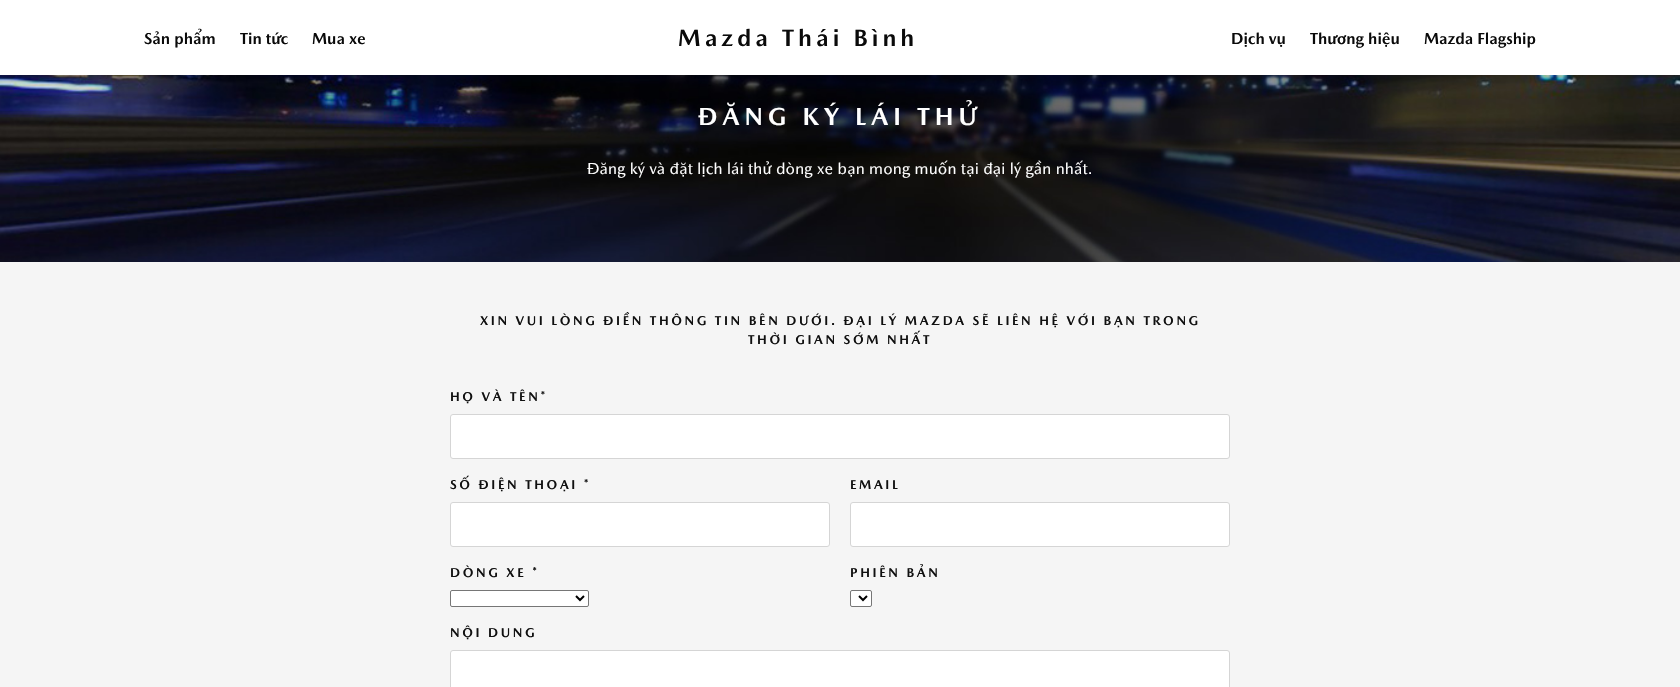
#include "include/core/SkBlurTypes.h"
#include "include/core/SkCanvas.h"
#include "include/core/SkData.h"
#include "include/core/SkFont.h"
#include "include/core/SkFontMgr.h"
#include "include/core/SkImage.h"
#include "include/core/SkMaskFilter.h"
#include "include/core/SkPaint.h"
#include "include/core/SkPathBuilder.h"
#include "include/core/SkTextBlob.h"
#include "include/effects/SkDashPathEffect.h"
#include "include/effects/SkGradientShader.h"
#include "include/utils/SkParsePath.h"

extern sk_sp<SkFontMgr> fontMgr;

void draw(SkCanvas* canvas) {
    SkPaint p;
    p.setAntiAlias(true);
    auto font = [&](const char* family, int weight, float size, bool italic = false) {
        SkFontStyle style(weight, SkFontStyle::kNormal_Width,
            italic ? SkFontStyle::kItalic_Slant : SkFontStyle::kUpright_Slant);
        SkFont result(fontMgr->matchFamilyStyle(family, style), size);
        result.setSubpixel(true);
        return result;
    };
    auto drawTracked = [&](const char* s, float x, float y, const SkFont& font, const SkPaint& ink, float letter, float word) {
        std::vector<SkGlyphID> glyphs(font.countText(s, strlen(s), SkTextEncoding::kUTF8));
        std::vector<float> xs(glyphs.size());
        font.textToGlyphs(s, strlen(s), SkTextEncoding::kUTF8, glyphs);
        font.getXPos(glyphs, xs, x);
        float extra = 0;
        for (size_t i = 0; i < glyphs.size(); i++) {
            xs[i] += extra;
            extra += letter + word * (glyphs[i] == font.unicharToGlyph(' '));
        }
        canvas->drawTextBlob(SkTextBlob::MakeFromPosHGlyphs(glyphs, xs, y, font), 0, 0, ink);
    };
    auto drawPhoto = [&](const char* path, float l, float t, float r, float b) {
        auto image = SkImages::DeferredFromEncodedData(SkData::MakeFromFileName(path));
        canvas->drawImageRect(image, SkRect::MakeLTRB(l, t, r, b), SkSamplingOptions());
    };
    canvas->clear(0xFFFFFFFF);
    drawPhoto("media/1.png", 0, 75, 1680, 262);
    p.setColor(0x1A000000);
    p.setMaskFilter(SkMaskFilter::MakeBlur(kNormal_SkBlurStyle, 4));
    canvas->drawRect(SkRect::MakeLTRB(0, 2, 1680, 77), p);
    p.setMaskFilter(nullptr);
    p.setColor(0xFFFFFFFF);
    canvas->drawRect(SkRect::MakeLTRB(0, 0, 1680, 75), p);
    auto font1 = font("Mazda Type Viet", 700, 16);
    p.setColor(0xFF0A0A0A);
    {
        const struct { const char* s; float x, y; } items[] = {
            {"Sản phẩm", 144, 44},
            {"Tin tức", 240, 44},
            {"Mua xe", 312, 44},
        };
        for (auto [s, x, y] : items) {
            canvas->drawString(s, x, y, font1, p);
        }
    }
    auto font2 = font("Mazda Type Viet", 700, 24);
    drawTracked("Mazda Thái Bình", 678, 46, font2, p, 4, 0);
    {
        const struct { const char* s; float x, y; } items[] = {
            {"Dịch vụ", 1231, 44},
            {"Thương hiệu", 1310, 44},
            {"Mazda Flagship", 1424, 44},
        };
        for (auto [s, x, y] : items) {
            canvas->drawString(s, x, y, font1, p);
        }
    }
    auto font3 = font("Mazda Type Viet", 700, 25);
    p.setColor(0xFFFFFFFF);
    drawTracked("ĐĂNG KÝ LÁI THỬ", 698, 125, font3, p, 5, 0);
    auto font4 = font("Mazda Type Viet", 400, 16);
    drawTracked("Đăng ký và đặt lịch lái thử dòng xe bạn mong muốn tại đại lý gần nhất.", 587, 174, font4, p, 0.15f, 0);
    p.setColor(0xFFF5F5F5);
    canvas->drawRect(SkRect::MakeLTRB(0, 262, 1680, 687), p);
    auto font5 = font("Mazda Type Viet", 700, 13);
    p.setColor(0xFF101010);
    {
        const struct { const char* s; float x, y; } items[] = {
            {"XIN VUI LÒNG ĐIỀN THÔNG TIN BÊN DƯỚI. ĐẠI LÝ MAZDA SẼ LIÊN HỆ VỚI BẠN TRONG", 480, 325},
            {"THỜI GIAN SỚM NHẤT", 748, 344},
            {"HỌ VÀ TÊN*", 450, 401},
        };
        for (auto [s, x, y] : items) {
            drawTracked(s, x, y, font5, p, 2.6f, 0);
        }
    }
    p.setColor(0xFFFFFFFF);
    canvas->drawRoundRect(SkRect::MakeLTRB(450.5f, 414.5f, 1229.5f, 458.5f), 2.5f, 2.5f, p);
    p.setStyle(SkPaint::kStroke_Style);
    p.setStrokeWidth(1);
    p.setColor(0xFFD5D5D5);
    canvas->drawRoundRect(SkRect::MakeLTRB(450.5f, 414.5f, 1229.5f, 458.5f), 2.5f, 2.5f, p);
    p.setStyle(SkPaint::kFill_Style);
    p.setColor(0xFF101010);
    drawTracked("SỐ ĐIỆN THOẠI *", 450, 489, font5, p, 2.6f, 0);
    p.setColor(0xFFFFFFFF);
    canvas->drawRoundRect(SkRect::MakeLTRB(450.5f, 502.5f, 829.5f, 546.5f), 2.5f, 2.5f, p);
    p.setStyle(SkPaint::kStroke_Style);
    p.setColor(0xFFD5D5D5);
    canvas->drawRoundRect(SkRect::MakeLTRB(450.5f, 502.5f, 829.5f, 546.5f), 2.5f, 2.5f, p);
    p.setStyle(SkPaint::kFill_Style);
    p.setColor(0xFF101010);
    drawTracked("EMAIL", 850, 489, font5, p, 2.6f, 0);
    p.setColor(0xFFFFFFFF);
    canvas->drawRoundRect(SkRect::MakeLTRB(850.5f, 502.5f, 1229.5f, 546.5f), 2.5f, 2.5f, p);
    p.setStyle(SkPaint::kStroke_Style);
    p.setColor(0xFFD5D5D5);
    canvas->drawRoundRect(SkRect::MakeLTRB(850.5f, 502.5f, 1229.5f, 546.5f), 2.5f, 2.5f, p);
    p.setStyle(SkPaint::kFill_Style);
    p.setColor(0xFF101010);
    drawTracked("DÒNG XE *", 450, 577, font5, p, 2.6f, 0);
    p.setColor(0xFFFFFFFF);
    canvas->drawRoundRect(SkRect::MakeLTRB(450.5f, 590.5f, 588.5f, 606.5f), 1.5f, 1.5f, p);
    p.setStyle(SkPaint::kStroke_Style);
    p.setColor(0xFF767676);
    canvas->drawRoundRect(SkRect::MakeLTRB(450.5f, 590.5f, 588.5f, 606.5f), 1.5f, 1.5f, p);
    p.setStrokeWidth(2);
    p.setColor(0xFF000000);
    canvas->drawPath(SkPathBuilder().moveTo(576, 596).lineTo(580, 600).lineTo(584, 596).detach(), p);
    p.setStyle(SkPaint::kFill_Style);
    p.setColor(0xFF101010);
    drawTracked("PHIÊN BẢN", 850, 577, font5, p, 2.6f, 0);
    p.setColor(0xFFFFFFFF);
    canvas->drawRoundRect(SkRect::MakeLTRB(850.5f, 590.5f, 871.5f, 606.5f), 1.5f, 1.5f, p);
    p.setStyle(SkPaint::kStroke_Style);
    p.setStrokeWidth(1);
    p.setColor(0xFF767676);
    canvas->drawRoundRect(SkRect::MakeLTRB(850.5f, 590.5f, 871.5f, 606.5f), 1.5f, 1.5f, p);
    p.setStrokeWidth(2);
    p.setColor(0xFF000000);
    canvas->drawPath(SkPathBuilder().moveTo(859, 596).lineTo(863, 600).lineTo(867, 596).detach(), p);
    p.setStyle(SkPaint::kFill_Style);
    p.setColor(0xFF101010);
    drawTracked("NỘI DUNG", 450, 637, font5, p, 2.6f, 0);
    p.setColor(0xFFFFFFFF);
    canvas->drawRoundRect(SkRect::MakeLTRB(450.5f, 650.5f, 1229.5f, 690.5f), 2.5f, 2.5f, p);
    p.setStyle(SkPaint::kStroke_Style);
    p.setStrokeWidth(1);
    p.setColor(0xFFD5D5D5);
    canvas->drawRoundRect(SkRect::MakeLTRB(450.5f, 650.5f, 1229.5f, 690.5f), 2.5f, 2.5f, p);
}
